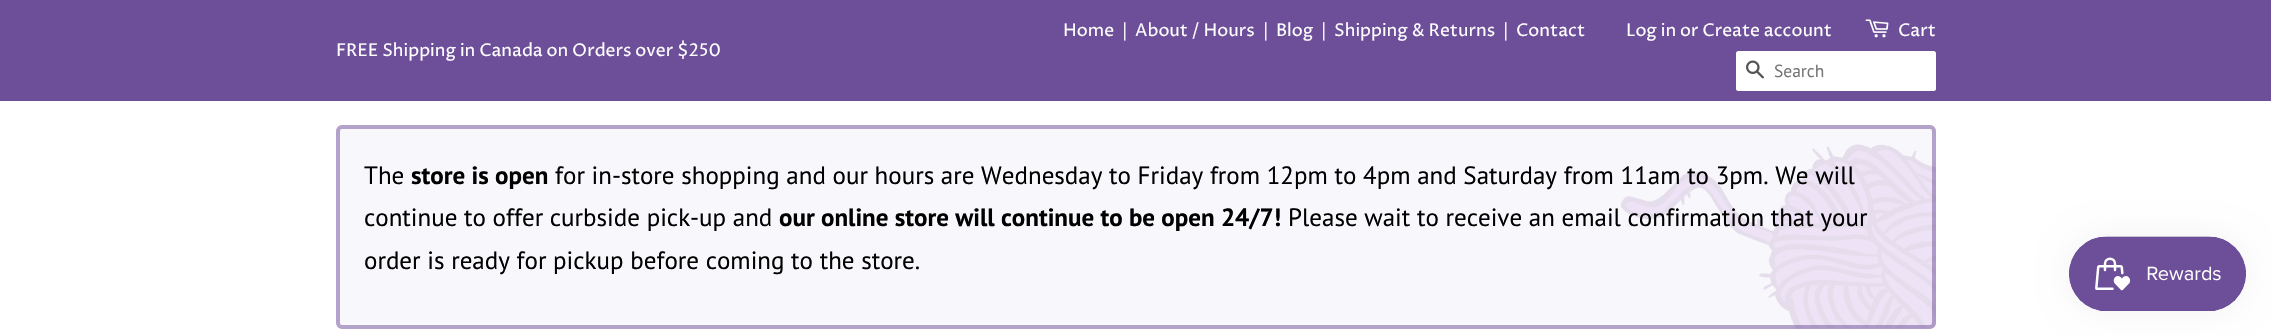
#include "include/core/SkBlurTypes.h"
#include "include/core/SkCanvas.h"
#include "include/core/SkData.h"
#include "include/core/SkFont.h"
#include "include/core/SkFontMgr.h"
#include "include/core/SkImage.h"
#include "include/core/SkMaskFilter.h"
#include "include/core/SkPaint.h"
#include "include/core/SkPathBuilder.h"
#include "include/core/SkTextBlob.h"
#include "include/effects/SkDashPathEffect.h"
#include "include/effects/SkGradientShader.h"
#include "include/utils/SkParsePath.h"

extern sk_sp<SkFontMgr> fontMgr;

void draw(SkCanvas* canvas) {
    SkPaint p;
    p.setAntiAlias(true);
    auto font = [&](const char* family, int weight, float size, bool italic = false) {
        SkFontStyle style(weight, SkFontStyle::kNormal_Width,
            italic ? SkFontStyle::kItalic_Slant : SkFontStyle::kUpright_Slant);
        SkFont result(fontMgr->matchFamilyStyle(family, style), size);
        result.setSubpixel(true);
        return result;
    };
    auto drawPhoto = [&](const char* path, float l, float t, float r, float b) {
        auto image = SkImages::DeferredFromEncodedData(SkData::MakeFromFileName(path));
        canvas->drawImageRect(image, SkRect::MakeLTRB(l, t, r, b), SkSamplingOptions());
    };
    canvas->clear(0xFFFFFFFF);
    p.setColor(0xFF6D4F99);
    canvas->drawRect(SkRect::MakeLTRB(0, 0, 2271, 101), p);
    auto font1 = font("Proza Libre", 400, 17.5f);
    p.setColor(0xFFFFFFFF);
    {
        const struct { const char* s; float x, y; } items[] = {
            {"FREE Shipping in Canada on Orders over $250", 336, 56},
            {"Home", 1063, 36},
            {"|", 1122, 36},
            {"About / Hours", 1135, 36},
            {"|", 1263, 36},
            {"Blog", 1276, 36},
            {"|", 1321, 36},
            {"Shipping & Returns", 1334, 36},
            {"|", 1503, 36},
            {"Contact", 1516, 36},
            {"Log in or Create account", 1626, 36},
        };
        for (auto [s, x, y] : items) {
            canvas->drawString(s, x, y, font1, p);
        }
    }
    drawPhoto("media/1.png", 1865, 19, 1889, 38);
    canvas->drawString("Cart", 1898, 36, font1, p);
    canvas->drawRoundRect(SkRect::MakeLTRB(1736, 51, 1936, 91), 2.5f, 2.5f, p);
    drawPhoto("media/2.png", 1746, 60, 1764, 79);
    auto font2 = font("PT Sans", 400, 17.5f);
    p.setColor(0xFF757575);
    canvas->drawString("Search", 1774, 77, font2, p);
    p.setColor(0xFFF8F7FB);
    canvas->drawRoundRect(SkRect::MakeLTRB(336, 125, 1936, 329), 6, 6, p);
    drawPhoto("media/3.png", 1621, 144, 1936, 329);
    p.setStyle(SkPaint::kStroke_Style);
    p.setStrokeWidth(4);
    p.setColor(0x806D4F99);
    canvas->drawRoundRect(SkRect::MakeLTRB(338, 127, 1934, 327), 4, 4, p);
    auto font3 = font("PT Sans", 400, 25);
    p.setStyle(SkPaint::kFill_Style);
    p.setColor(0xFF000000);
    canvas->drawString("The", 364, 184, font3, p);
    auto font4 = font("PT Sans", 700, 25);
    canvas->drawString("store is open", 411, 184, font4, p);
    canvas->drawString("for in-store shopping and our hours are Wednesday to Friday from 12pm to 4pm and Saturday from 11am to 3pm. We will", 555, 184, font3, p);
    canvas->drawString("continue to offer curbside pick-up and", 364, 226, font3, p);
    canvas->drawString("our online store will continue to be open 24/7!", 779, 226, font4, p);
    canvas->drawString("Please wait to receive an email confirmation that your", 1288, 226, font3, p);
    canvas->drawString("order is ready for pickup before coming to the store.", 364, 269, font3, p);
    p.setColor(0x0D000000);
    p.setMaskFilter(SkMaskFilter::MakeBlur(kNormal_SkBlurStyle, 15.5f));
    canvas->drawRoundRect(SkRect::MakeLTRB(2069, 236, 2246, 311), 37.5f, 37.5f, p);
    p.setMaskFilter(nullptr);
    drawPhoto("media/4.png", 2069, 236, 2246, 311);
}
